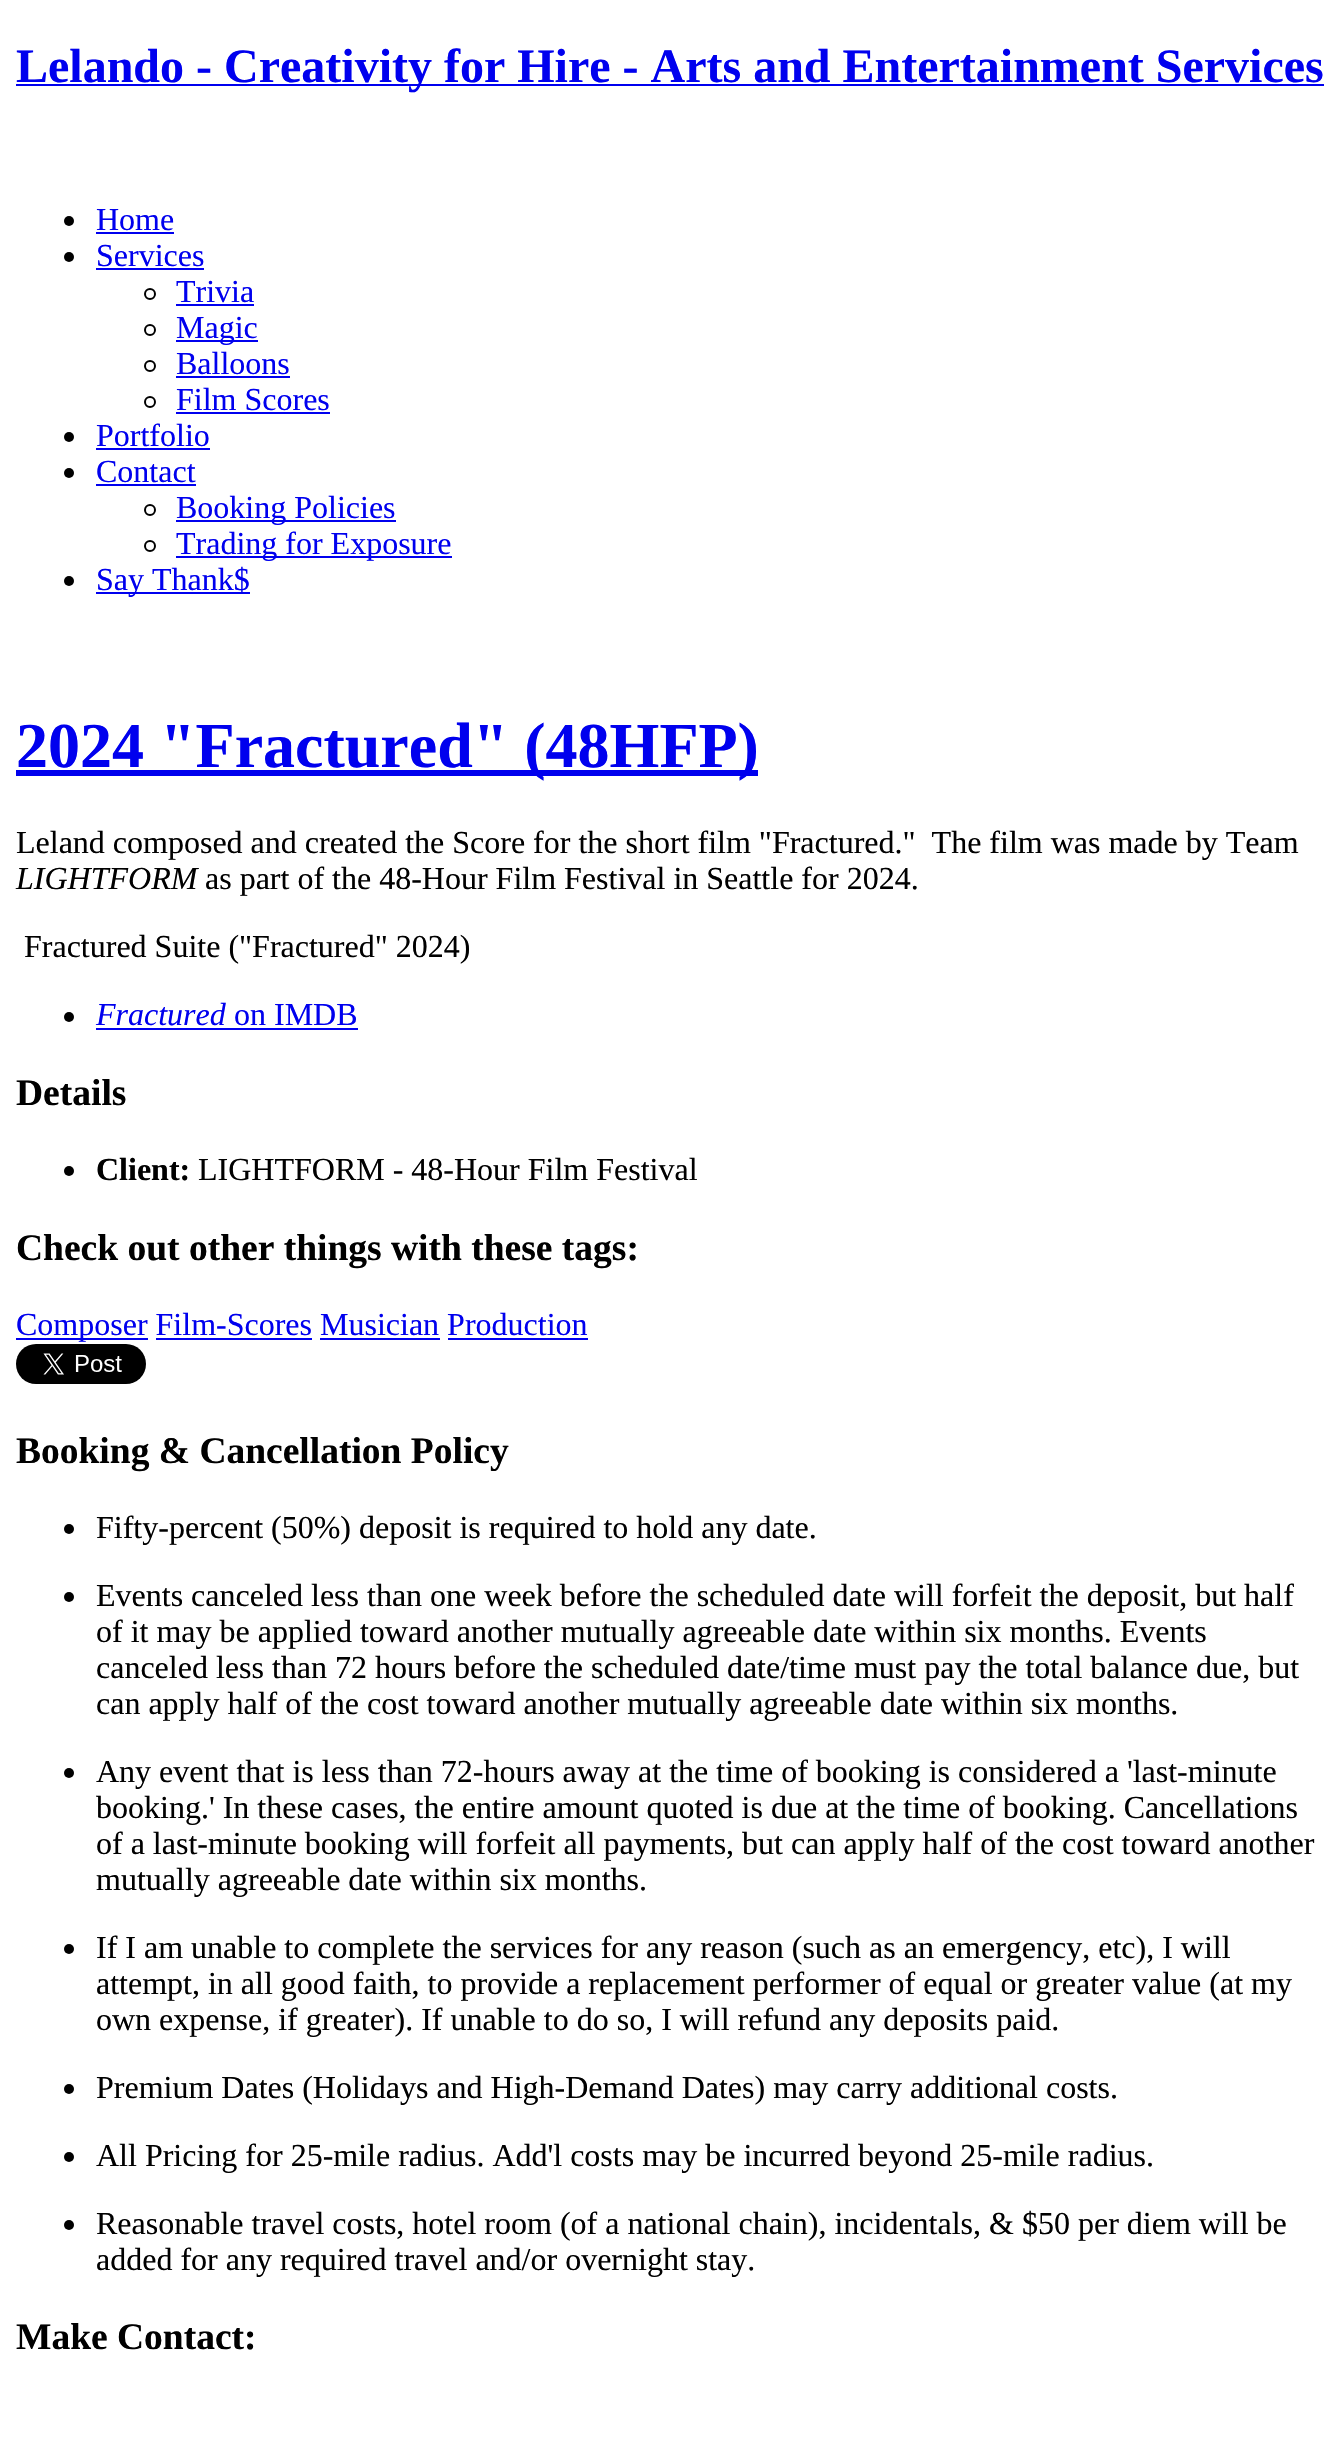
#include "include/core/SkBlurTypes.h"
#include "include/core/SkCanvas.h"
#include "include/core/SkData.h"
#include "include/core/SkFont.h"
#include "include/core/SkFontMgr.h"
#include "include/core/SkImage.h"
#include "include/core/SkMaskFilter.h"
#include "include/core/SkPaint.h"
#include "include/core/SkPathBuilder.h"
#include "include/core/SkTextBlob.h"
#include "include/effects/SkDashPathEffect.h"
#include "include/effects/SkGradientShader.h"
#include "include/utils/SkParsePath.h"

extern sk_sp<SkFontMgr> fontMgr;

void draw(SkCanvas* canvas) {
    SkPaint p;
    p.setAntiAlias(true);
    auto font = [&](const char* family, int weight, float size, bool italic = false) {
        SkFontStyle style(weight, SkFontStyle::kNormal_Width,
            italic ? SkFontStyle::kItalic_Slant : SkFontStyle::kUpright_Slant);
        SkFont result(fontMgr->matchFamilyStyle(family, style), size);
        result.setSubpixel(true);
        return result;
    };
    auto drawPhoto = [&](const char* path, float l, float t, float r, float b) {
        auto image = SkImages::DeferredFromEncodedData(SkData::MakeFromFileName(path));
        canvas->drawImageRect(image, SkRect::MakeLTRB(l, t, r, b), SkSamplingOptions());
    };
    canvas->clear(0xFFFFFFFF);
    p.setColor(0xFF0000EE);
    canvas->drawRect(SkRect::MakeLTRB(16, 84, 1324, 86), p);
    auto font1 = font("Liberation Serif", 700, 48);
    canvas->drawString("Lelando - Creativity for Hire - Arts and Entertainment Services", 16, 82, font1, p);
    p.setColor(0xFF000000);
    canvas->drawCircle(69, 221, 5, p);
    auto font2 = font("Liberation Serif", 400, 32);
    p.setColor(0xFF0000EE);
    canvas->drawString("Home", 96, 230, font2, p);
    canvas->drawRect(SkRect::MakeLTRB(96, 232, 174, 234), p);
    p.setColor(0xFF000000);
    canvas->drawCircle(69, 257, 5, p);
    p.setColor(0xFF0000EE);
    canvas->drawString("Services", 96, 266, font2, p);
    canvas->drawRect(SkRect::MakeLTRB(96, 268, 204, 270), p);
    p.setStyle(SkPaint::kStroke_Style);
    p.setStrokeWidth(2);
    p.setColor(0xFF000000);
    canvas->drawCircle(150, 294, 5, p);
    p.setStyle(SkPaint::kFill_Style);
    p.setColor(0xFF0000EE);
    canvas->drawString("Trivia", 176, 302, font2, p);
    canvas->drawRect(SkRect::MakeLTRB(176, 304, 254, 306), p);
    p.setStyle(SkPaint::kStroke_Style);
    p.setColor(0xFF000000);
    canvas->drawCircle(150, 330, 5, p);
    p.setStyle(SkPaint::kFill_Style);
    p.setColor(0xFF0000EE);
    canvas->drawRect(SkRect::MakeLTRB(176, 340, 258, 342), p);
    canvas->drawString("Magic", 176, 338, font2, p);
    p.setStyle(SkPaint::kStroke_Style);
    p.setColor(0xFF000000);
    canvas->drawCircle(150, 366, 5, p);
    p.setStyle(SkPaint::kFill_Style);
    p.setColor(0xFF0000EE);
    canvas->drawString("Balloons", 176, 374, font2, p);
    canvas->drawRect(SkRect::MakeLTRB(176, 376, 290, 378), p);
    p.setStyle(SkPaint::kStroke_Style);
    p.setColor(0xFF000000);
    canvas->drawCircle(150, 402, 5, p);
    p.setStyle(SkPaint::kFill_Style);
    p.setColor(0xFF0000EE);
    canvas->drawString("Film Scores", 176, 410, font2, p);
    canvas->drawRect(SkRect::MakeLTRB(176, 412, 330, 414), p);
    p.setColor(0xFF000000);
    canvas->drawCircle(69, 437, 5, p);
    p.setColor(0xFF0000EE);
    canvas->drawString("Portfolio", 96, 446, font2, p);
    canvas->drawRect(SkRect::MakeLTRB(96, 448, 210, 450), p);
    p.setColor(0xFF000000);
    canvas->drawCircle(69, 473, 5, p);
    p.setColor(0xFF0000EE);
    canvas->drawString("Contact", 96, 482, font2, p);
    canvas->drawRect(SkRect::MakeLTRB(96, 484, 196, 486), p);
    p.setStyle(SkPaint::kStroke_Style);
    p.setColor(0xFF000000);
    canvas->drawCircle(150, 510, 5, p);
    p.setStyle(SkPaint::kFill_Style);
    p.setColor(0xFF0000EE);
    canvas->drawRect(SkRect::MakeLTRB(176, 520, 396, 522), p);
    canvas->drawString("Booking Policies", 176, 518, font2, p);
    p.setStyle(SkPaint::kStroke_Style);
    p.setColor(0xFF000000);
    canvas->drawCircle(150, 546, 5, p);
    p.setStyle(SkPaint::kFill_Style);
    p.setColor(0xFF0000EE);
    canvas->drawRect(SkRect::MakeLTRB(176, 556, 452, 558), p);
    canvas->drawString("Trading for Exposure", 176, 554, font2, p);
    p.setColor(0xFF000000);
    canvas->drawCircle(69, 581, 5, p);
    p.setColor(0xFF0000EE);
    canvas->drawRect(SkRect::MakeLTRB(96, 592, 250, 594), p);
    canvas->drawString("Say Thank$", 96, 590, font2, p);
    canvas->drawRect(SkRect::MakeLTRB(16, 770, 758, 776), p);
    auto font3 = font("Liberation Serif", 700, 64);
    canvas->drawString("2024 \"Fractured\" (48HFP)", 16, 767, font3, p);
    p.setColor(0xFF000000);
    canvas->drawString("Leland composed and created the Score for the short film \"Fractured.\"  The film was made by Team", 16, 853, font2, p);
    auto font4 = font("Liberation Serif", 400, 32, true);
    canvas->drawString("LIGHTFORM", 16, 889, font4, p);
    canvas->drawString("as part of the 48-Hour Film Festival in Seattle for 2024.", 205, 889, font2, p);
    canvas->drawString("Fractured Suite (\"Fractured\" 2024)", 24, 957, font2, p);
    canvas->drawCircle(69, 1017, 5, p);
    p.setColor(0xFF0000EE);
    canvas->drawString("Fractured", 96, 1025, font4, p);
    canvas->drawString("on IMDB", 234, 1025, font2, p);
    canvas->drawRect(SkRect::MakeLTRB(96, 1028, 358, 1030), p);
    auto font5 = font("Liberation Serif", 700, 37.5f);
    p.setColor(0xFF000000);
    canvas->drawString("Details", 16, 1105, font5, p);
    canvas->drawCircle(69, 1171, 5, p);
    auto font6 = font("Liberation Serif", 700, 32);
    canvas->drawString("Client:", 96, 1180, font6, p);
    canvas->drawString("LIGHTFORM - 48-Hour Film Festival", 198, 1180, font2, p);
    canvas->drawString("Check out other things with these tags:", 16, 1260, font5, p);
    p.setColor(0xFF0000EE);
    canvas->drawRect(SkRect::MakeLTRB(16, 1338, 148, 1340), p);
    canvas->drawString("Composer Film-Scores Musician Production", 16, 1335, font2, p);
    {
        const struct { float l, t, r, b; SkColor color; } items[] = {
            {156, 1338, 312, 1340, 0xFF0000EE},
            {320, 1338, 440, 1340, 0xFF0000EE},
            {448, 1338, 588, 1340, 0xFF0000EE},
        };
        for (auto [l, t, r, b, color] : items) {
            p.setColor(color);
            canvas->drawRect(SkRect::MakeLTRB(l, t, r, b), p);
        }
    }
    drawPhoto("media/1.png", 16, 1344, 146, 1384);
    p.setColor(0xFF000000);
    canvas->drawString("Booking & Cancellation Policy", 16, 1463, font5, p);
    canvas->drawCircle(69, 1529, 5, p);
    canvas->drawString("Fifty-percent (50%) deposit is required to hold any date.", 96, 1538, font2, p);
    canvas->drawCircle(69, 1597, 5, p);
    {
        const struct { const char* s; float x, y; } items[] = {
            {"Events canceled less than one week before the scheduled date will forfeit the deposit, but half", 96, 1606},
            {"of it may be applied toward another mutually agreeable date within six months. Events", 96, 1642},
            {"canceled less than 72 hours before the scheduled date/time must pay the total balance due, but", 96, 1678},
            {"can apply half of the cost toward another mutually agreeable date within six months.", 96, 1714},
        };
        for (auto [s, x, y] : items) {
            canvas->drawString(s, x, y, font2, p);
        }
    }
    canvas->drawCircle(69, 1773, 5, p);
    {
        const struct { const char* s; float x, y; } items[] = {
            {"Any event that is less than 72-hours away at the time of booking is considered a 'last-minute", 96, 1782},
            {"booking.' In these cases, the entire amount quoted is due at the time of booking. Cancellations", 96, 1818},
            {"of a last-minute booking will forfeit all payments, but can apply half of the cost toward another", 96, 1854},
            {"mutually agreeable date within six months.", 96, 1890},
        };
        for (auto [s, x, y] : items) {
            canvas->drawString(s, x, y, font2, p);
        }
    }
    canvas->drawCircle(69, 1949, 5, p);
    {
        const struct { const char* s; float x, y; } items[] = {
            {"If I am unable to complete the services for any reason (such as an emergency, etc), I will", 96, 1958},
            {"attempt, in all good faith, to provide a replacement performer of equal or greater value (at my", 96, 1994},
            {"own expense, if greater). If unable to do so, I will refund any deposits paid.", 96, 2030},
        };
        for (auto [s, x, y] : items) {
            canvas->drawString(s, x, y, font2, p);
        }
    }
    canvas->drawCircle(69, 2089, 5, p);
    canvas->drawString("Premium Dates (Holidays and High-Demand Dates) may carry additional costs.", 96, 2098, font2, p);
    canvas->drawCircle(69, 2157, 5, p);
    canvas->drawString("All Pricing for 25-mile radius. Add'l costs may be incurred beyond 25-mile radius.", 96, 2166, font2, p);
    canvas->drawCircle(69, 2225, 5, p);
    canvas->drawString("Reasonable travel costs, hotel room (of a national chain), incidentals, & $50 per diem will be", 96, 2234, font2, p);
    canvas->drawString("added for any required travel and/or overnight stay.", 96, 2270, font2, p);
    canvas->drawString("Make Contact:", 16, 2349, font5, p);
}
